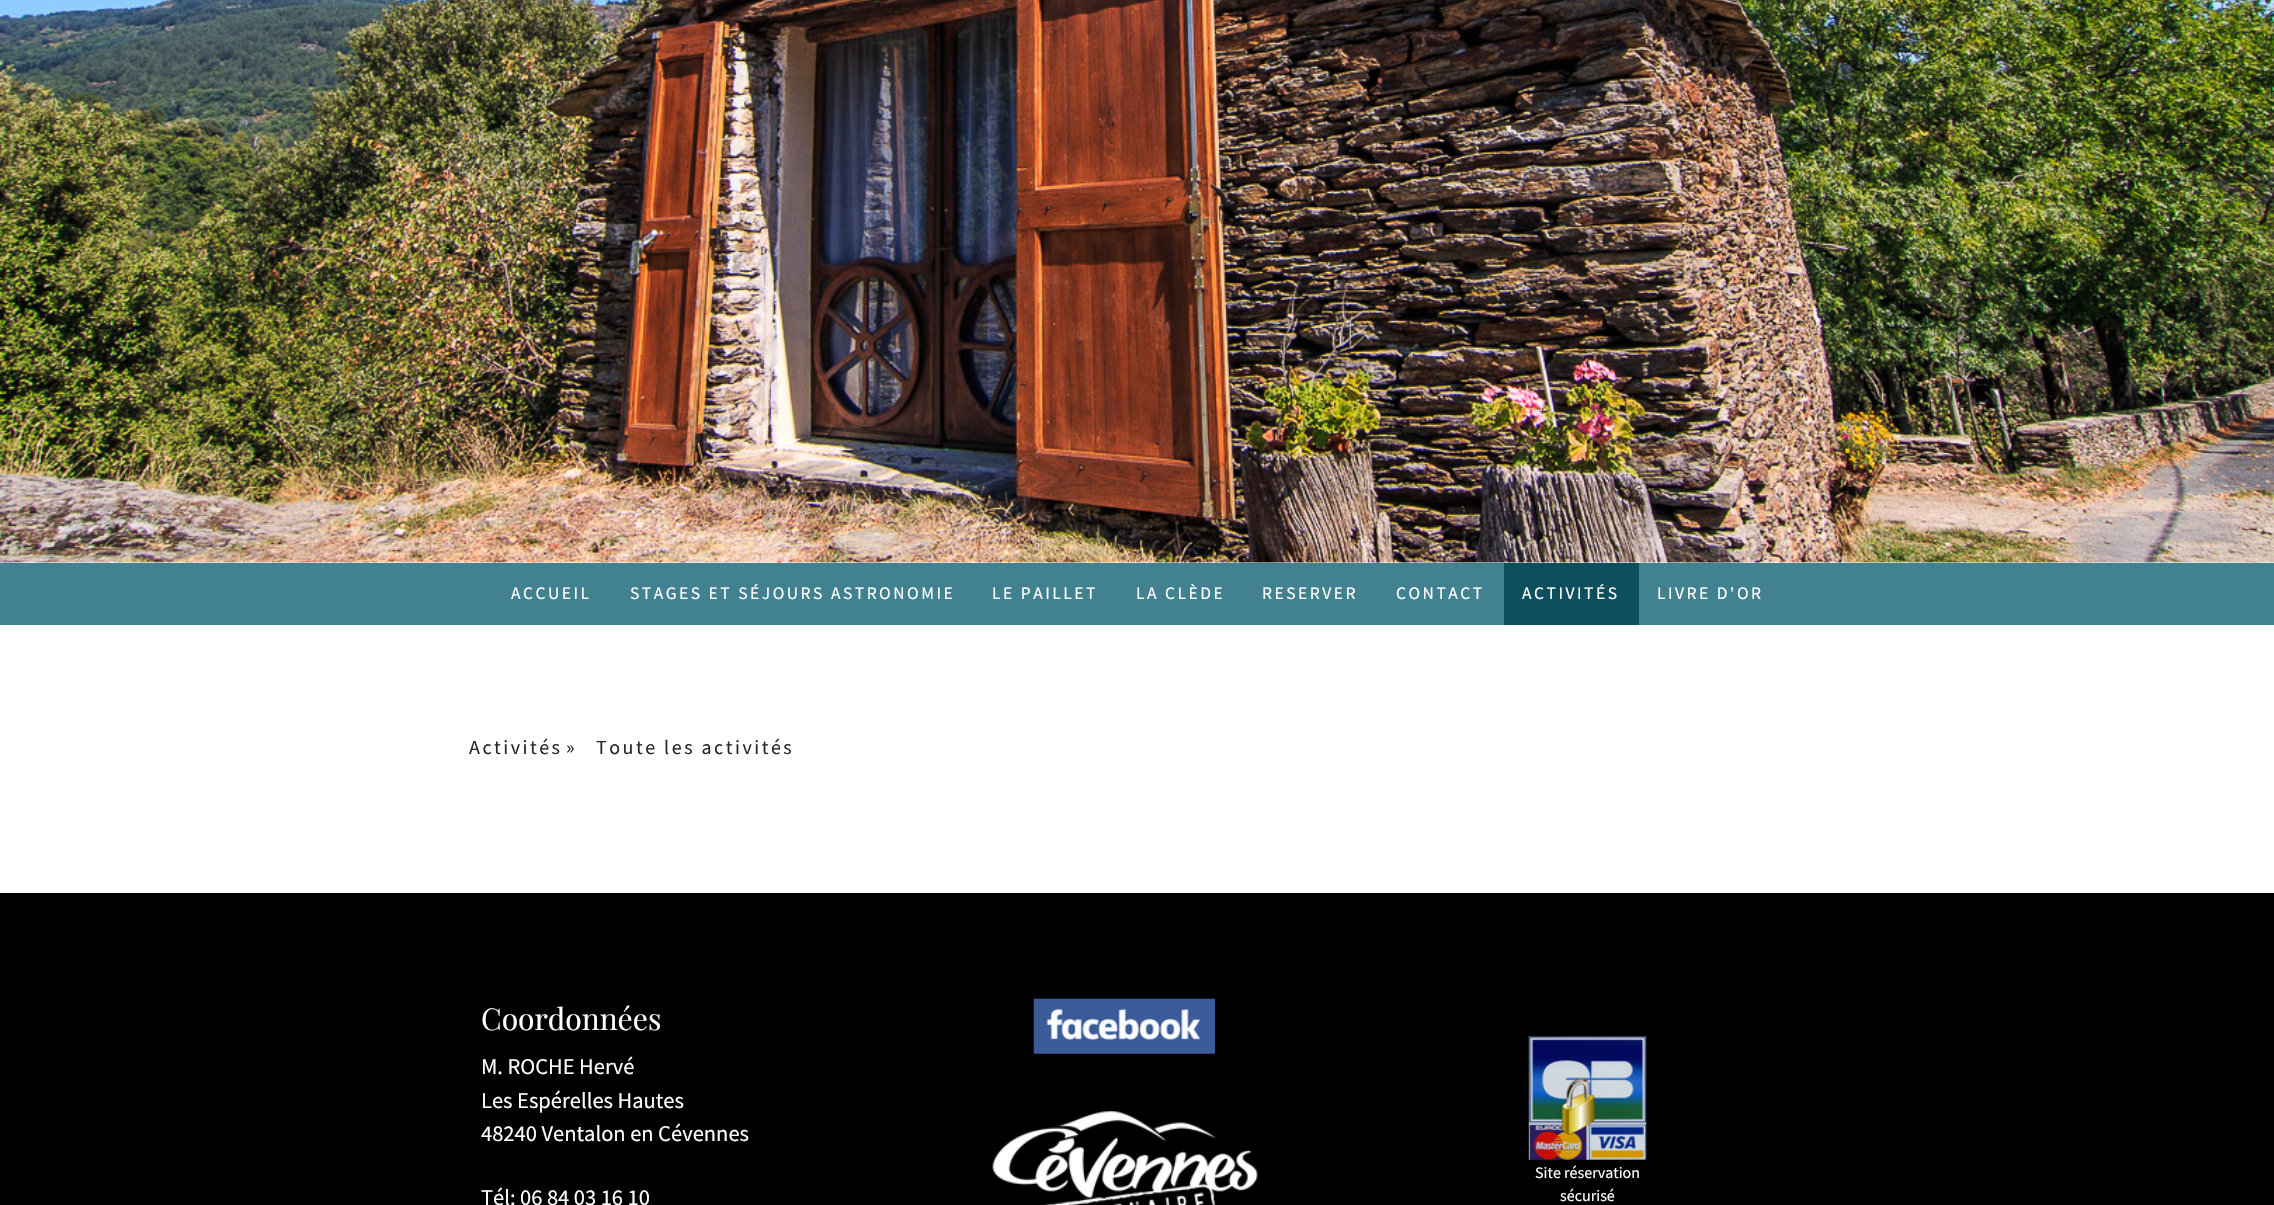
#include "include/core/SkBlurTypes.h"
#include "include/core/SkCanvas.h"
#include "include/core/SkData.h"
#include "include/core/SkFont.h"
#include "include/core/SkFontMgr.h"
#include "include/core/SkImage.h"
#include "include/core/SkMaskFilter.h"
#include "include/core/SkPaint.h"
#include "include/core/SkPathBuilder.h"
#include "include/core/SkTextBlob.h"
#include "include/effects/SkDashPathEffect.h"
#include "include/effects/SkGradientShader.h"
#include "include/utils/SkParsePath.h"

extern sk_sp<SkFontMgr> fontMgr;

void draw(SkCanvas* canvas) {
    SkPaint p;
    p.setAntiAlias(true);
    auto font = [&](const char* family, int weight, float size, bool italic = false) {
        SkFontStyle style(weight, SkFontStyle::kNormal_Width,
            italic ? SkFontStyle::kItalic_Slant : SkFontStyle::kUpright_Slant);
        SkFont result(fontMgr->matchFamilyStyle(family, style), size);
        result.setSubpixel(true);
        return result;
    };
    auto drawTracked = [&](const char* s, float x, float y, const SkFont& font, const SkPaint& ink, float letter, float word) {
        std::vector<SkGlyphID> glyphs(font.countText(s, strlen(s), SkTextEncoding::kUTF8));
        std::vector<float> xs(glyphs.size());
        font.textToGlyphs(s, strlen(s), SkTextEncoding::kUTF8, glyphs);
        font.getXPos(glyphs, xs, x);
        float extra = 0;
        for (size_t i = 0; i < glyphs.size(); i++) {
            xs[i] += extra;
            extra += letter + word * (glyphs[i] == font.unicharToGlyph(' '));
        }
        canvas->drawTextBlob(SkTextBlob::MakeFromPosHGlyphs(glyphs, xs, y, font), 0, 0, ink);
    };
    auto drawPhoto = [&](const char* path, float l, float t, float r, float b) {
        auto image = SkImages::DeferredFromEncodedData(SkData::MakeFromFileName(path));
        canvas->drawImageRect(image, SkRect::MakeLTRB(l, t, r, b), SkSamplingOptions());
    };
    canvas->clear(0xFFFFFFFF);
    drawPhoto("media/1.png", 0, 0, 2274, 563);
    p.setColor(0xFF42818F);
    canvas->drawRect(SkRect::MakeLTRB(0, 563, 2274, 625), p);
    auto font1 = font("Source Sans Pro", 400, 17.5f);
    p.setColor(0xFFFFFFFF);
    {
        const struct { const char* s; float x, y; } items[] = {
            {"ACCUEIL", 511, 599},
            {"STAGES ET SÉJOURS ASTRONOMIE", 630, 599},
            {"LE PAILLET", 992, 599},
            {"LA CLÈDE", 1136, 599},
            {"RESERVER", 1262, 599},
            {"CONTACT", 1396, 599},
        };
        for (auto [s, x, y] : items) {
            drawTracked(s, x, y, font1, p, 2.5f, 0);
        }
    }
    p.setColor(0xFF0E4F5D);
    canvas->drawRect(SkRect::MakeLTRB(1504, 563, 1639, 625), p);
    p.setColor(0xFFFFFFFF);
    drawTracked("ACTIVITÉS", 1522, 599, font1, p, 2.5f, 0);
    drawTracked("LIVRE D'OR", 1657, 599, font1, p, 2.5f, 0);
    auto font2 = font("Source Sans Pro", 400, 20);
    p.setColor(0xFF282828);
    {
        const struct { const char* s; float x, y; } items[] = {
            {"Activités", 469, 754},
            {"»", 566, 754},
            {"Toute les activités", 596, 754},
        };
        for (auto [s, x, y] : items) {
            drawTracked(s, x, y, font2, p, 2.5f, 0);
        }
    }
    p.setColor(0xFF000000);
    canvas->drawRect(SkRect::MakeLTRB(0, 893, 2274, 1205), p);
    auto font3 = font("Playfair Display", 400, 30);
    p.setColor(0xFFFFFFFF);
    canvas->drawString("Coordonnées", 481, 1030, font3, p);
    auto font4 = font("Source Sans Pro", 400, 22.5f);
    {
        const struct { const char* s; float x, y; } items[] = {
            {"M. ROCHE Hervé", 481, 1074},
            {"Les Espérelles Hautes", 481, 1108},
            {"48240 Ventalon en Cévennes", 481, 1141},
            {"Tél: 06 84 03 16 10", 481, 1205},
        };
        for (auto [s, x, y] : items) {
            canvas->drawString(s, x, y, font4, p);
        }
    }
    drawPhoto("media/2.png", 1033, 998, 1215, 1054);
    drawPhoto("media/3.png", 992, 1110, 1258, 1205);
    drawPhoto("media/4.png", 1528, 1036, 1647, 1160);
    auto font5 = font("Source Sans Pro", 400, 16);
    canvas->drawString("Site réservation", 1535, 1178, font5, p);
    canvas->drawString("sécurisé", 1560, 1201, font5, p);
}
